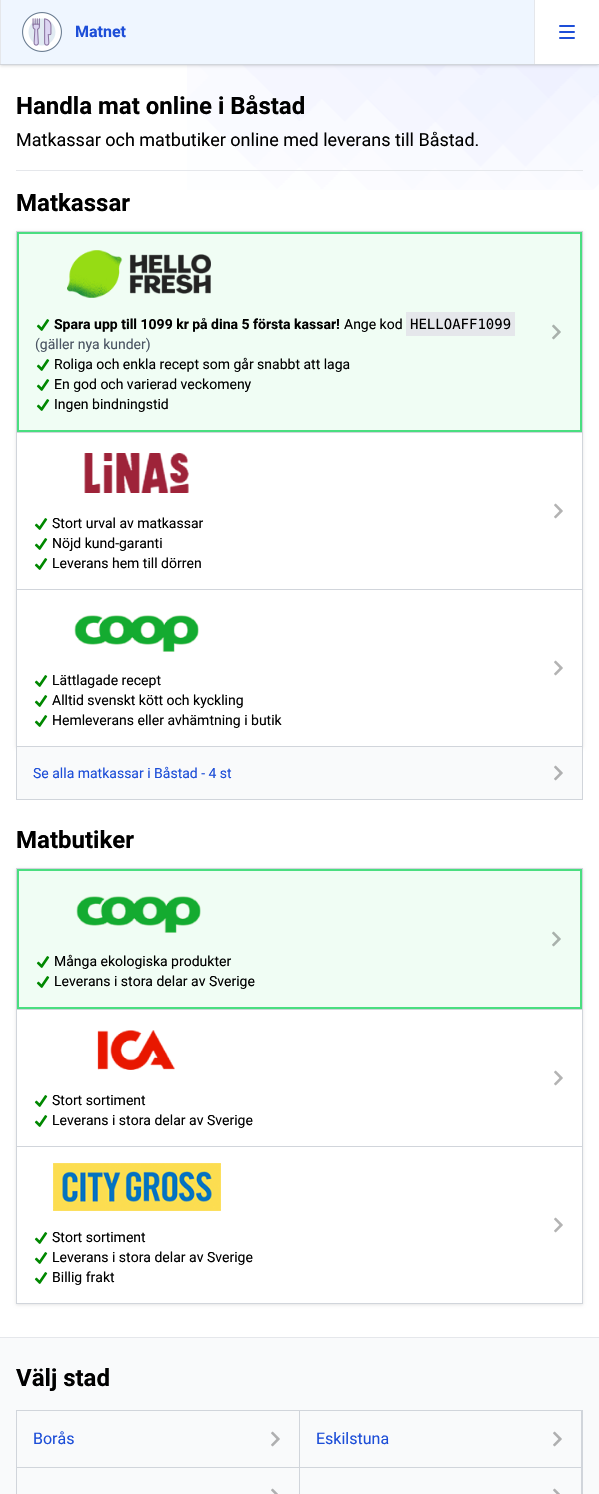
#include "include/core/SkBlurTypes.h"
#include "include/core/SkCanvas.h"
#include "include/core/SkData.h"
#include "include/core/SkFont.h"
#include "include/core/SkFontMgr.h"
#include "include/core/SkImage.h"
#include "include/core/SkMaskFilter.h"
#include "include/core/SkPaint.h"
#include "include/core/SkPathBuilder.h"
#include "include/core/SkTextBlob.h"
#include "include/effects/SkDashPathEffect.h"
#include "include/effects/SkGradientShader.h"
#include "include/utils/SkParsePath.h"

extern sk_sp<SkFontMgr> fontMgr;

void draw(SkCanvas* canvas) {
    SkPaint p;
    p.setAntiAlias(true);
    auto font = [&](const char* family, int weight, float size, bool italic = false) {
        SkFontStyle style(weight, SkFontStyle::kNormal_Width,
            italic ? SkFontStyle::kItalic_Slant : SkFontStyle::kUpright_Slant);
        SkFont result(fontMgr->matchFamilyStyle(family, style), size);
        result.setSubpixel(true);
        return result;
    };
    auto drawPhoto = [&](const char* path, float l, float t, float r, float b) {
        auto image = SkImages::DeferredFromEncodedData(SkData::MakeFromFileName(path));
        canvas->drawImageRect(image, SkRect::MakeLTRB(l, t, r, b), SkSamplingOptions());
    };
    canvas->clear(0xFFF9FAFB);
    p.setColor(0xFFFFFFFF);
    canvas->drawRect(SkRect::MakeLTRB(0, 65, 599, 1337), p);
    drawPhoto("media/2.png", 187, 65, 599, 190);
    p.setColor(0x1A000000);
    p.setMaskFilter(SkMaskFilter::MakeBlur(kNormal_SkBlurStyle, 1));
    canvas->drawRect(SkRect::MakeLTRB(1, 2, 598, 65), p);
    p.setMaskFilter(nullptr);
    p.setMaskFilter(SkMaskFilter::MakeBlur(kNormal_SkBlurStyle, 1.5f));
    canvas->drawRect(SkRect::MakeLTRB(0, 1, 599, 66), p);
    p.setMaskFilter(nullptr);
    {
        const struct { float l, t, r, b; SkColor color; } items[] = {
            {535, 0, 599, 64, 0xFFFFFFFF},
            {0, 64, 599, 65, 0xFFD1D5DB},
            {1, 0, 534, 64, 0xFFEFF6FF},
            {534, 0, 535, 64, 0xFFE5E7EB},
            {0, 0, 1, 64, 0xFFE5E7EB},
        };
        for (auto [l, t, r, b, color] : items) {
            p.setColor(color);
            canvas->drawRect(SkRect::MakeLTRB(l, t, r, b), p);
        }
    }
    drawPhoto("media/1.png", 22, 12, 62, 52);
    auto font1 = font("Roboto", 700, 16);
    p.setColor(0xFF1D4ED8);
    canvas->drawString("Matnet", 75, 37, font1, p);
    p.setStyle(SkPaint::kStroke_Style);
    p.setStrokeWidth(2);
    p.setStrokeCap(SkPaint::kRound_Cap);
    canvas->drawPath(SkPathBuilder().moveTo(560, 26).lineTo(574, 26).moveTo(560, 32).lineTo(574, 32).moveTo(560, 38).lineTo(574, 38).detach(), p);
    auto font2 = font("Roboto", 700, 24);
    p.setStyle(SkPaint::kFill_Style);
    p.setColor(0xFF000000);
    canvas->drawString("Handla mat online i Båstad", 16, 114, font2, p);
    auto font3 = font("Roboto", 400, 18);
    canvas->drawString("Matkassar och matbutiker online med leverans till Båstad.", 16, 146, font3, p);
    p.setColor(0xFFE5E7EB);
    canvas->drawRect(SkRect::MakeLTRB(16, 170, 583, 171), p);
    p.setColor(0xFF000000);
    canvas->drawString("Matkassar", 16, 211, font2, p);
    canvas->save();
    canvas->clipPath(SkPathBuilder(SkPathFillType::kEvenOdd).moveTo(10, 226).lineTo(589, 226).lineTo(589, 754).lineTo(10, 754).close().moveTo(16, 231).lineTo(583, 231).lineTo(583, 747).lineTo(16, 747).close().detach(), true);
    p.setColor(0x1A000000);
    p.setMaskFilter(SkMaskFilter::MakeBlur(kNormal_SkBlurStyle, 1.5f));
    canvas->drawRect(SkRect::MakeLTRB(16, 232, 583, 748), p);
    p.setMaskFilter(nullptr);
    canvas->restore();
    p.setStyle(SkPaint::kStroke_Style);
    p.setStrokeWidth(1);
    p.setStrokeCap(SkPaint::kButt_Cap);
    p.setColor(0xFFD1D5DB);
    canvas->drawRect(SkRect::MakeLTRB(16.5f, 231.5f, 582.5f, 746.5f), p);
    p.setStyle(SkPaint::kFill_Style);
    p.setColor(0xFFF0FDF4);
    canvas->drawRect(SkRect::MakeLTRB(18, 233, 581, 431), p);
    p.setStyle(SkPaint::kStroke_Style);
    p.setStrokeWidth(2);
    p.setColor(0xFF4ADE80);
    canvas->drawRect(SkRect::MakeLTRB(18, 233, 581, 431), p);
    drawPhoto("media/3.png", 67, 250, 211, 298);
    drawPhoto("media/4.png", 36, 319, 50, 331);
    auto font4 = font("Roboto", 700, 14);
    p.setStyle(SkPaint::kFill_Style);
    p.setColor(0xFF000000);
    canvas->drawString("Spara upp till 1099 kr på dina 5 första kassar!", 54, 329, font4, p);
    auto font5 = font("Roboto", 400, 14);
    canvas->drawString("Ange kod", 344, 329, font5, p);
    p.setColor(0xFFE5E7EB);
    canvas->drawRect(SkRect::MakeLTRB(406, 312, 515, 336), p);
    auto font6 = font("DejaVu Sans Mono", 400, 14);
    p.setColor(0xFF000000);
    canvas->drawString("HELLOAFF1099", 410, 329, font6, p);
    p.setColor(0xFF4B5563);
    canvas->drawString("(gäller nya kunder)", 35, 349, font5, p);
    drawPhoto("media/4.png", 36, 359, 50, 371);
    p.setColor(0xFF000000);
    canvas->drawString("Roliga och enkla recept som går snabbt att laga", 54, 369, font5, p);
    drawPhoto("media/4.png", 36, 379, 50, 391);
    canvas->drawString("En god och varierad veckomeny", 54, 389, font5, p);
    drawPhoto("media/4.png", 36, 399, 50, 411);
    canvas->drawString("Ingen bindningstid", 54, 409, font5, p);
    drawPhoto("media/5.png", 552, 324, 561, 340);
    p.setColor(0xFFD1D5DB);
    canvas->drawRect(SkRect::MakeLTRB(17, 432, 582, 433), p);
    drawPhoto("media/6.png", 554, 503, 563, 519);
    drawPhoto("media/7.png", 84, 453, 189, 493);
    drawPhoto("media/8.png", 34, 518, 48, 530);
    p.setColor(0xFF000000);
    canvas->drawString("Stort urval av matkassar", 52, 528, font5, p);
    drawPhoto("media/8.png", 34, 538, 48, 550);
    canvas->drawString("Nöjd kund-garanti", 52, 548, font5, p);
    drawPhoto("media/8.png", 34, 558, 48, 570);
    canvas->drawString("Leverans hem till dörren", 52, 568, font5, p);
    p.setColor(0xFFD1D5DB);
    canvas->drawRect(SkRect::MakeLTRB(17, 589, 582, 590), p);
    drawPhoto("media/6.png", 554, 660, 563, 676);
    drawPhoto("media/9.png", 74, 615, 199, 652);
    drawPhoto("media/8.png", 34, 675, 48, 687);
    p.setColor(0xFF000000);
    canvas->drawString("Lättlagade recept", 52, 685, font5, p);
    drawPhoto("media/8.png", 34, 695, 48, 707);
    canvas->drawString("Alltid svenskt kött och kyckling", 52, 705, font5, p);
    drawPhoto("media/8.png", 34, 715, 48, 727);
    canvas->drawString("Hemleverans eller avhämtning i butik", 52, 725, font5, p);
    p.setColor(0xFFF9FAFB);
    canvas->drawRect(SkRect::MakeLTRB(16.5f, 746.5f, 582.5f, 799.5f), p);
    p.setStyle(SkPaint::kStroke_Style);
    p.setStrokeWidth(1);
    p.setColor(0xFFD1D5DB);
    canvas->drawRect(SkRect::MakeLTRB(16.5f, 746.5f, 582.5f, 799.5f), p);
    p.setStyle(SkPaint::kFill_Style);
    p.setColor(0xFF1D4ED8);
    canvas->drawString("Se alla matkassar i Båstad - 4 st", 33, 778, font5, p);
    drawPhoto("media/10.png", 554, 765, 563, 781);
    p.setColor(0xFF000000);
    canvas->drawString("Matbutiker", 16, 848, font2, p);
    canvas->save();
    canvas->clipPath(SkPathBuilder(SkPathFillType::kEvenOdd).moveTo(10, 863).lineTo(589, 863).lineTo(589, 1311).lineTo(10, 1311).close().moveTo(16, 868).lineTo(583, 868).lineTo(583, 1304).lineTo(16, 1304).close().detach(), true);
    p.setColor(0x1A000000);
    p.setMaskFilter(SkMaskFilter::MakeBlur(kNormal_SkBlurStyle, 1.5f));
    canvas->drawRect(SkRect::MakeLTRB(16, 869, 583, 1305), p);
    p.setMaskFilter(nullptr);
    canvas->restore();
    p.setStyle(SkPaint::kStroke_Style);
    p.setColor(0xFFD1D5DB);
    canvas->drawRect(SkRect::MakeLTRB(16.5f, 868.5f, 582.5f, 1303.5f), p);
    p.setStyle(SkPaint::kFill_Style);
    p.setColor(0xFFF0FDF4);
    canvas->drawRect(SkRect::MakeLTRB(18, 870, 581, 1008), p);
    p.setStyle(SkPaint::kStroke_Style);
    p.setStrokeWidth(2);
    p.setColor(0xFF4ADE80);
    canvas->drawRect(SkRect::MakeLTRB(18, 870, 581, 1008), p);
    drawPhoto("media/5.png", 552, 931, 561, 947);
    drawPhoto("media/11.png", 76, 896, 201, 933);
    drawPhoto("media/4.png", 36, 956, 50, 968);
    p.setStyle(SkPaint::kFill_Style);
    p.setColor(0xFF000000);
    canvas->drawString("Många ekologiska produkter", 54, 966, font5, p);
    drawPhoto("media/4.png", 36, 976, 50, 988);
    canvas->drawString("Leverans i stora delar av Sverige", 54, 986, font5, p);
    p.setColor(0xFFD1D5DB);
    canvas->drawRect(SkRect::MakeLTRB(17, 1009, 582, 1010), p);
    drawPhoto("media/6.png", 554, 1070, 563, 1086);
    drawPhoto("media/12.png", 97, 1030, 175, 1070);
    drawPhoto("media/8.png", 34, 1095, 48, 1107);
    p.setColor(0xFF000000);
    canvas->drawString("Stort sortiment", 52, 1105, font5, p);
    drawPhoto("media/8.png", 34, 1115, 48, 1127);
    canvas->drawString("Leverans i stora delar av Sverige", 52, 1125, font5, p);
    p.setColor(0xFFD1D5DB);
    canvas->drawRect(SkRect::MakeLTRB(17, 1146, 582, 1147), p);
    drawPhoto("media/6.png", 554, 1217, 563, 1233);
    drawPhoto("media/13.png", 53, 1163, 221, 1211);
    drawPhoto("media/8.png", 34, 1232, 48, 1244);
    p.setColor(0xFF000000);
    canvas->drawString("Stort sortiment", 52, 1242, font5, p);
    drawPhoto("media/8.png", 34, 1252, 48, 1264);
    canvas->drawString("Leverans i stora delar av Sverige", 52, 1262, font5, p);
    drawPhoto("media/8.png", 34, 1272, 48, 1284);
    canvas->drawString("Billig frakt", 52, 1282, font5, p);
    p.setColor(0xFFE5E7EB);
    canvas->drawRect(SkRect::MakeLTRB(0, 1337, 599, 1338), p);
    p.setColor(0xFF000000);
    canvas->drawString("Välj stad", 16, 1386, font2, p);
    p.setStyle(SkPaint::kStroke_Style);
    p.setStrokeWidth(1);
    p.setColor(0xFFD1D5DB);
    canvas->drawRect(SkRect::MakeLTRB(16.5f, 1410.5f, 582.5f, 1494.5f), p);
    p.setStyle(SkPaint::kFill_Style);
    canvas->drawRect(SkRect::MakeLTRB(299, 1411, 300, 1494), p);
    canvas->drawRect(SkRect::MakeLTRB(17, 1467, 300, 1468), p);
    auto font7 = font("Roboto", 400, 16);
    p.setColor(0xFF1D4ED8);
    canvas->drawString("Borås", 33, 1444, font7, p);
    drawPhoto("media/10.png", 271, 1431, 280, 1447);
    p.setColor(0xFFD1D5DB);
    canvas->drawRect(SkRect::MakeLTRB(581, 1411, 582, 1494), p);
    canvas->drawRect(SkRect::MakeLTRB(300, 1467, 582, 1468), p);
    p.setColor(0xFF1D4ED8);
    canvas->drawString("Eskilstuna", 316, 1444, font7, p);
    drawPhoto("media/10.png", 553, 1431, 562, 1447);
    drawPhoto("media/14.png", 271, 1488, 278, 1494);
    drawPhoto("media/14.png", 553, 1488, 560, 1494);
}
